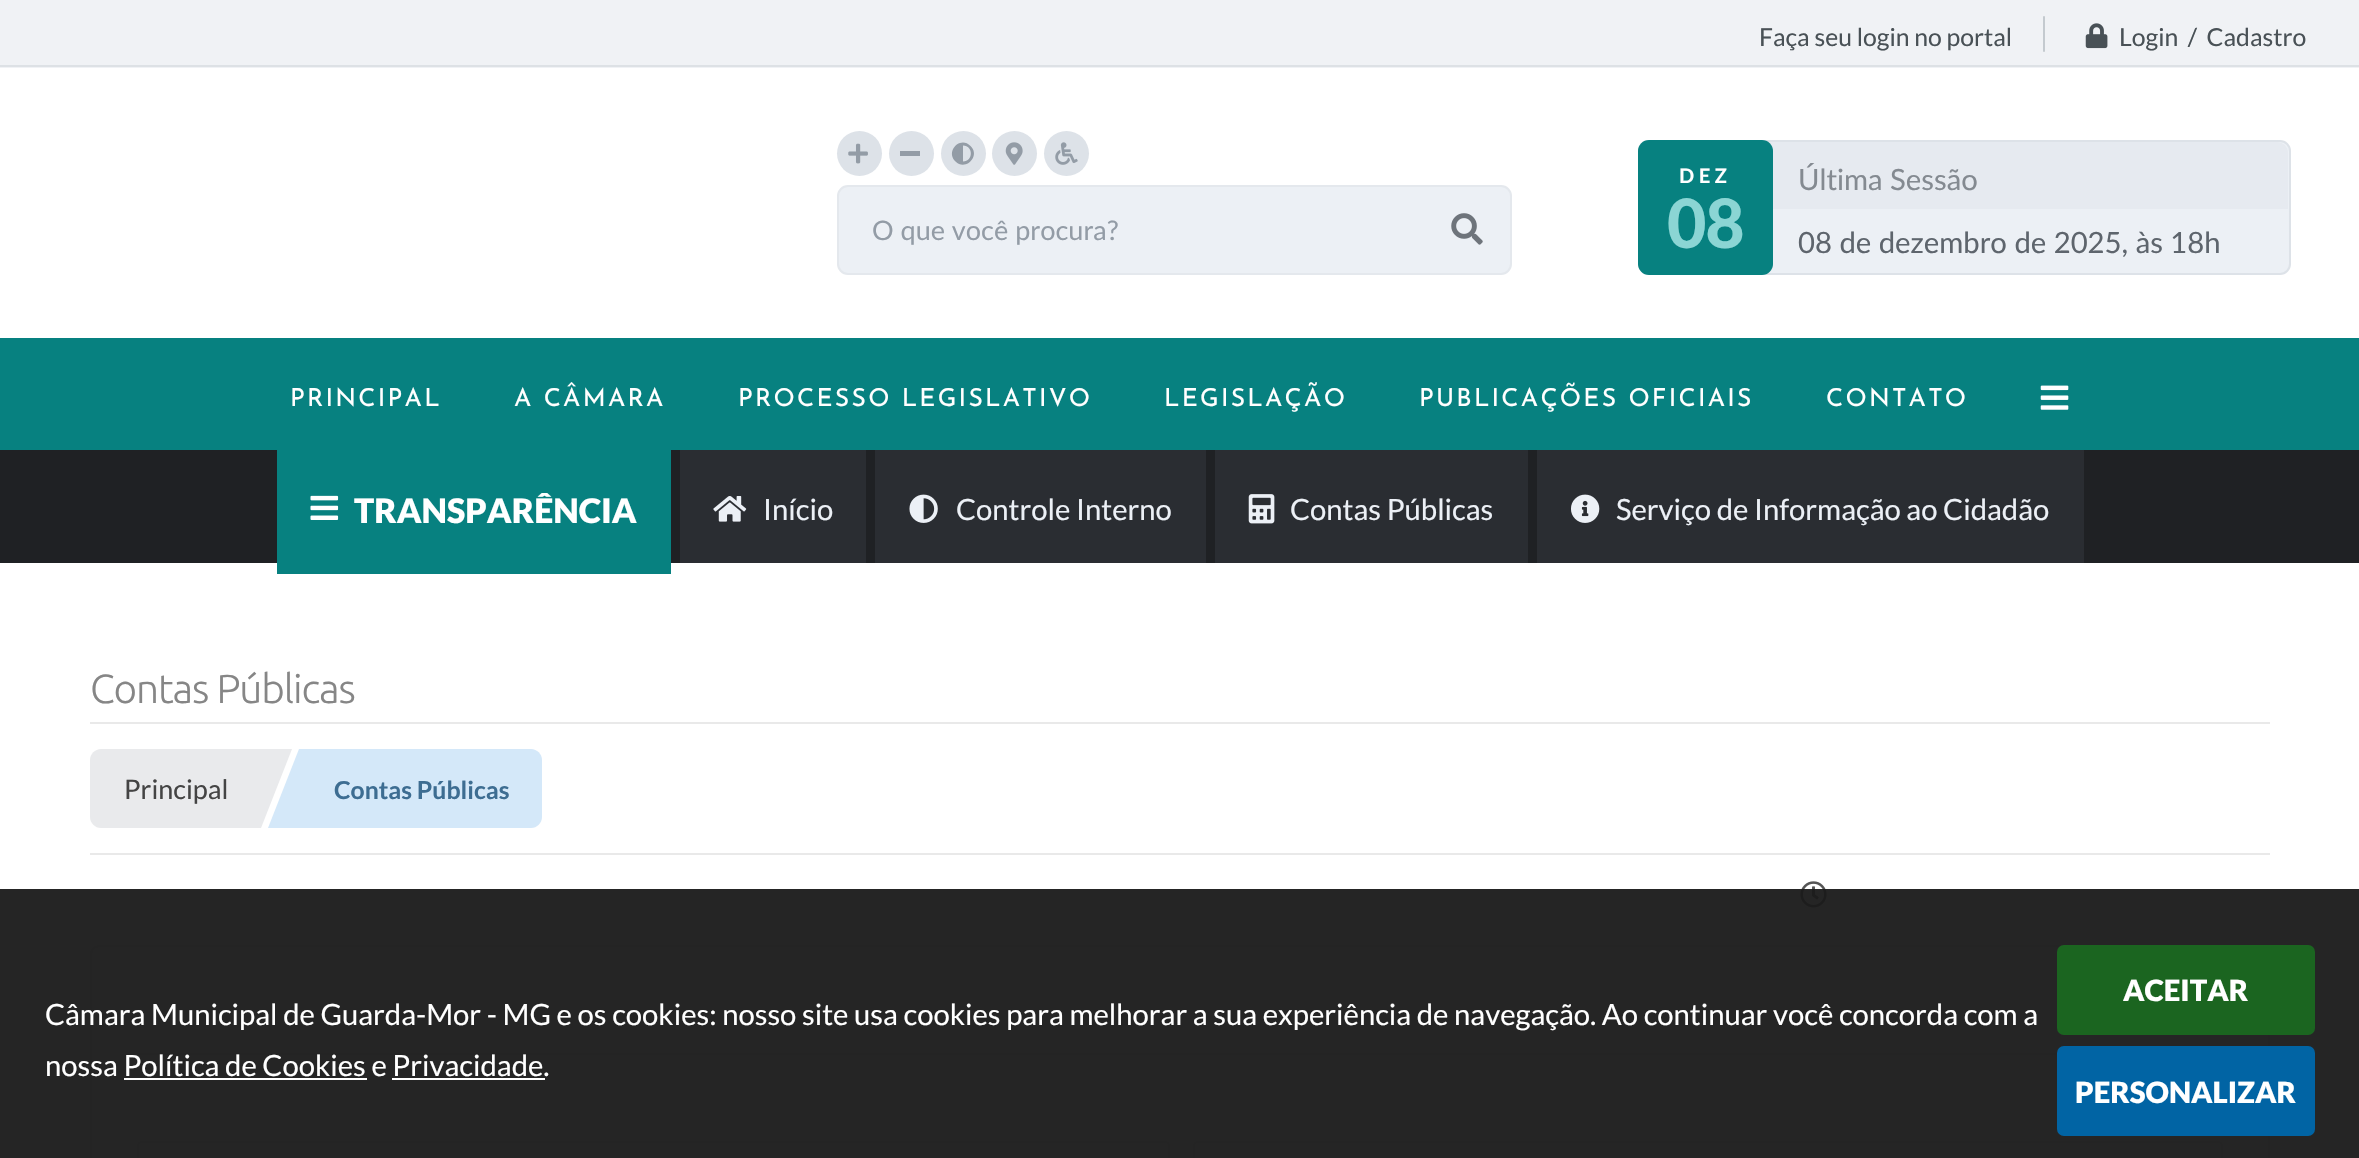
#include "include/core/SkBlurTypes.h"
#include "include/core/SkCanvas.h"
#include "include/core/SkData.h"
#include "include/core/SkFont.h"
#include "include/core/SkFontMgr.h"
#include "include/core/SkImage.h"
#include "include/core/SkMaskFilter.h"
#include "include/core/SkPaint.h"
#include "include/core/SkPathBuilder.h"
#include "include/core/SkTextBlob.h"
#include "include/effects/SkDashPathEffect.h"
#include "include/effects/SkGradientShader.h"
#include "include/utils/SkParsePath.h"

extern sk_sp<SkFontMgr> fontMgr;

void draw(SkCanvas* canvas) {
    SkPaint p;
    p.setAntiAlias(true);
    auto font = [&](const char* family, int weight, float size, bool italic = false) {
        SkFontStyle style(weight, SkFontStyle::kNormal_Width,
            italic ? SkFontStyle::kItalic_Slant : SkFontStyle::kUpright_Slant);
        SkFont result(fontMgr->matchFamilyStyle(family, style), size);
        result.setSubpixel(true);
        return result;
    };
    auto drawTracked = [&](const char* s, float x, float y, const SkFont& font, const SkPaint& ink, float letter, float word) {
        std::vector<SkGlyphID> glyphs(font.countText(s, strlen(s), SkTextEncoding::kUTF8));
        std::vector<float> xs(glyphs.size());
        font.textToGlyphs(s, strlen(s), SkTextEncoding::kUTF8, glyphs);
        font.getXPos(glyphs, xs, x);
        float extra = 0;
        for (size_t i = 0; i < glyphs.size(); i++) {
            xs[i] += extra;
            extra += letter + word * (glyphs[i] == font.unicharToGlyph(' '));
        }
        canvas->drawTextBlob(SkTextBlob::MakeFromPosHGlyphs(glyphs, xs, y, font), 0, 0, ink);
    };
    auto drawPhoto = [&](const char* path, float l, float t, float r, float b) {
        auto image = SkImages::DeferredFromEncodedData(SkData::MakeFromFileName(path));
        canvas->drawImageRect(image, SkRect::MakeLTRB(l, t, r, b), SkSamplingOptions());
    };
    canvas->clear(0xFFFFFFFF);
    p.setColor(0xFFF0F2F5);
    canvas->drawRect(SkRect::MakeLTRB(0, 0, 2359, 68), p);
    p.setColor(0xFFDDE1E5);
    canvas->drawRect(SkRect::MakeLTRB(0, 65, 2359, 67), p);
    auto font1 = font("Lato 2", 400, 24.75f);
    p.setColor(0xFF495156);
    canvas->drawString("Faça seu login no portal", 1759, 46, font1, p);
    p.setColor(0xFFC4CACF);
    canvas->drawRoundRect(SkRect::MakeLTRB(2043, 16, 2045, 52), 1, 1, p);
    drawPhoto("media/1.png", 2085, 23, 2108, 49);
    p.setColor(0xFF495156);
    canvas->drawString("Login  /  Cadastro", 2119, 46, font1, p);
    p.setColor(0xFFDDE2E8);
    canvas->drawCircle(859.5f, 153.5f, 22.5f, p);
    drawPhoto("media/2.png", 848, 143, 868, 164);
    canvas->drawCircle(911.5f, 153.5f, 22.5f, p);
    p.setColor(0xFF939CA6);
    canvas->drawRect(SkRect::MakeLTRB(900, 151, 920, 156), p);
    p.setColor(0xFFDDE2E8);
    canvas->drawCircle(963.5f, 153.5f, 22.5f, p);
    p.setColor(0xFF939CA6);
    canvas->drawPath(SkPathBuilder().moveTo(955.5f, 161.5f).cubicTo(945, 151, 960.5f, 135.5f, 970.5f, 146).cubicTo(981, 156, 965.5f, 171.5f, 955.5f, 161.5f).close().moveTo(963, 161.5f).cubicTo(973.5f, 161.5f, 973.5f, 145.5f, 963, 145.5f).close().detach(), p);
    p.setColor(0xFFDDE2E8);
    canvas->drawCircle(1014.5f, 153.5f, 22.5f, p);
    drawPhoto("media/3.png", 1005, 142, 1023, 165);
    canvas->drawCircle(1066.5f, 153.5f, 22.5f, p);
    drawPhoto("media/4.png", 1055, 142, 1078, 165);
    p.setColor(0xFFECF0F5);
    canvas->drawRoundRect(SkRect::MakeLTRB(838, 186, 1511, 274), 10, 10, p);
    p.setStyle(SkPaint::kStroke_Style);
    p.setStrokeWidth(2);
    p.setColor(0xFFE4E8ED);
    canvas->drawRoundRect(SkRect::MakeLTRB(838, 186, 1511, 274), 10, 10, p);
    auto font2 = font("Lato", 400, 27);
    p.setStyle(SkPaint::kFill_Style);
    p.setColor(0xFF939CA6);
    canvas->drawString("O que você procura?", 872, 240, font2, p);
    drawPhoto("media/5.png", 1451, 213, 1483, 245);
    p.setColor(0xFFECF0F5);
    canvas->drawRoundRect(SkRect::MakeLTRB(1639, 141, 2290, 274), 10, 10, p);
    p.setStyle(SkPaint::kStroke_Style);
    p.setColor(0xFFDDE2E8);
    canvas->drawRoundRect(SkRect::MakeLTRB(1639, 141, 2290, 274), 10, 10, p);
    p.setStyle(SkPaint::kFill_Style);
    p.setColor(0xFFE6EAF0);
    canvas->drawPath(SkPathBuilder().moveTo(1764, 142).lineTo(2277, 142).cubicTo(2283, 142, 2288, 147, 2288, 153).lineTo(2288, 209).lineTo(1764, 209).close().detach(), p);
    p.setColor(0xFF078180);
    canvas->drawRoundRect(SkRect::MakeLTRB(1638, 140, 1773, 275), 11, 11, p);
    auto font3 = font("Lato", 700, 20);
    p.setColor(0xFFFFFFFF);
    drawTracked("DEZ", 1679, 183, font3, p, 4.5f, 0);
    auto font4 = font("Lato", 900, 68);
    p.setColor(0xFF8BD5D4);
    drawTracked("08", 1667, 248, font4, p, -1.1f, 0);
    auto font5 = font("Lato", 400, 29.25f);
    p.setColor(0xFF848A91);
    canvas->drawString("Última Sessão", 1798, 190, font5, p);
    p.setColor(0xFF5E656D);
    canvas->drawString("08 de dezembro de 2025, às 18h", 1798, 253, font5, p);
    p.setColor(0xFF078180);
    canvas->drawRect(SkRect::MakeLTRB(0, 338, 2359, 450), p);
    auto font6 = font("Josefin Sans", 400, 24.75f);
    p.setColor(0xFFFFFFFF);
    {
        const struct { const char* s; float x, y; } items[] = {
            {"PRINCIPAL", 290, 406},
            {"A CÂMARA", 514, 406},
            {"PROCESSO LEGISLATIVO", 738, 406},
            {"LEGISLAÇÃO", 1164, 406},
            {"PUBLICAÇÕES OFICIAIS", 1419, 406},
            {"CONTATO", 1826, 406},
        };
        for (auto [s, x, y] : items) {
            drawTracked(s, x, y, font6, p, 2.25f, 0);
        }
    }
    drawPhoto("media/6.png", 2040, 385, 2069, 410);
    drawPhoto("media/12.png", 1800, 881, 1827, 908);
    p.setColor(0xFFF1F2F3);
    canvas->drawRoundRect(SkRect::MakeLTRB(91, 946, 2269, 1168), 8, 8, p);
    p.setStyle(SkPaint::kStroke_Style);
    p.setColor(0xFFDDDDDD);
    canvas->drawRoundRect(SkRect::MakeLTRB(91, 946, 2269, 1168), 8, 8, p);
    p.setStyle(SkPaint::kFill_Style);
    p.setColor(0xFFDBDBDC);
    canvas->drawRect(SkRect::MakeLTRB(137, 1053, 2057, 1055), p);
    p.setColor(0xFFFFFFFF);
    canvas->drawRoundRect(SkRect::MakeLTRB(138, 1142, 1169, 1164), 4, 4, p);
    p.setStyle(SkPaint::kStroke_Style);
    p.setColor(0xFFE5E5E5);
    canvas->drawRoundRect(SkRect::MakeLTRB(138, 1142, 1169, 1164), 4, 4, p);
    p.setStyle(SkPaint::kFill_Style);
    p.setColor(0xFFFFFFFF);
    canvas->drawRoundRect(SkRect::MakeLTRB(1194, 1142, 2222, 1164), 4, 4, p);
    p.setStyle(SkPaint::kStroke_Style);
    p.setColor(0xFFE5E5E5);
    canvas->drawRoundRect(SkRect::MakeLTRB(1194, 1142, 2222, 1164), 4, 4, p);
    p.setStyle(SkPaint::kFill_Style);
    p.setColor(0xF2191919);
    canvas->drawRect(SkRect::MakeLTRB(0, 889, 2359, 1158), p);
    auto font7 = font("Lato 2", 400, 29.25f);
    p.setColor(0xFFFFFFFF);
    canvas->drawString("Câmara Municipal de Guarda-Mor - MG e os cookies: nosso site usa cookies para melhorar a sua experiência de navegação. Ao continuar você concorda com a", 45, 1025, font7, p);
    canvas->drawString("nossa Política de Cookies e Privacidade.", 45, 1076, font7, p);
    canvas->drawRect(SkRect::MakeLTRB(124, 1078, 367, 1080), p);
    canvas->drawRect(SkRect::MakeLTRB(392, 1078, 545, 1080), p);
    p.setColor(0xFF1B6520);
    canvas->drawRoundRect(SkRect::MakeLTRB(2057, 945, 2315, 1035), 7, 7, p);
    auto font8 = font("Lato 2", 900, 29.25f);
    p.setColor(0xFFFFFFFF);
    canvas->drawString("ACEITAR", 2123, 1001, font8, p);
    p.setColor(0xFF0164A4);
    canvas->drawRoundRect(SkRect::MakeLTRB(2057, 1046, 2315, 1136), 7, 7, p);
    p.setColor(0xFFFFFFFF);
    canvas->drawString("PERSONALIZAR", 2075, 1103, font8, p);
    p.setColor(0xFF1F2124);
    canvas->drawRect(SkRect::MakeLTRB(0, 450, 2359, 563), p);
    p.setColor(0xFF078180);
    canvas->drawRect(SkRect::MakeLTRB(277, 450, 671, 574), p);
    drawPhoto("media/7.png", 310, 495, 339, 520);
    auto font9 = font("Lato 2", 900, 33.75f);
    p.setColor(0xFFFFFFFF);
    canvas->drawString("TRANSPARÊNCIA", 354, 523, font9, p);
    p.setColor(0xFF2A2D32);
    canvas->drawRect(SkRect::MakeLTRB(680, 450, 866, 563), p);
    drawPhoto("media/8.png", 713, 496, 747, 522);
    p.setColor(0xFFECF0F6);
    canvas->drawString("Início", 763, 520, font7, p);
    p.setColor(0xFF2A2D32);
    canvas->drawRect(SkRect::MakeLTRB(875, 450, 1206, 563), p);
    drawPhoto("media/9.png", 909, 494, 938, 523);
    p.setColor(0xFFECF0F6);
    canvas->drawString("Controle Interno", 956, 520, font7, p);
    p.setColor(0xFF2A2D32);
    canvas->drawRect(SkRect::MakeLTRB(1215, 450, 1528, 563), p);
    drawPhoto("media/10.png", 1248, 494, 1275, 524);
    p.setColor(0xFFECF0F6);
    canvas->drawString("Contas Públicas", 1290, 520, font7, p);
    p.setColor(0xFF2A2D32);
    canvas->drawRect(SkRect::MakeLTRB(1537, 450, 2084, 563), p);
    drawPhoto("media/11.png", 1571, 494, 1600, 523);
    p.setColor(0xFFECF0F6);
    canvas->drawString("Serviço de Informação ao Cidadão", 1616, 520, font7, p);
    auto font10 = font("Ubuntu", 300, 40.5f);
    p.setColor(0xFF868686);
    drawTracked("Contas Públicas", 90, 703, font10, p, -1.1f, 0);
    p.setColor(0xFFE9E9E9);
    canvas->drawRect(SkRect::MakeLTRB(90, 722, 2270, 724), p);
    canvas->drawRect(SkRect::MakeLTRB(90, 853, 2270, 855), p);
    p.setColor(0xFFE9EAEC);
    canvas->drawPath(SkPathBuilder().moveTo(101, 749).lineTo(261, 749).lineTo(261, 828).lineTo(101, 828).cubicTo(95, 828, 90, 823, 90, 817).lineTo(90, 760).cubicTo(90, 754, 95, 749, 101, 749).close().detach(), p);
    auto font11 = font("Lato 2", 400, 27);
    p.setColor(0xFF444444);
    canvas->drawString("Principal", 124, 799, font11, p);
    p.setColor(0xFFE9EAEC);
    canvas->drawPath(SkPathBuilder().moveTo(261, 749).lineTo(292, 749).lineTo(261, 828).close().detach(), p);
    p.setColor(0xFFD4E8F9);
    canvas->drawPath(SkPathBuilder().moveTo(299, 749).lineTo(531, 749).cubicTo(537, 749, 542, 754, 542, 760).lineTo(542, 817).cubicTo(542, 823, 537, 828, 531, 828).lineTo(299, 828).close().detach(), p);
    canvas->drawPath(SkPathBuilder().moveTo(299, 828).lineTo(268, 828).lineTo(299, 749).close().detach(), p);
    auto font12 = font("Lato 2", 700, 24.75f);
    p.setColor(0xFF3D6D92);
    canvas->drawString("Contas Públicas", 334, 799, font12, p);
}
